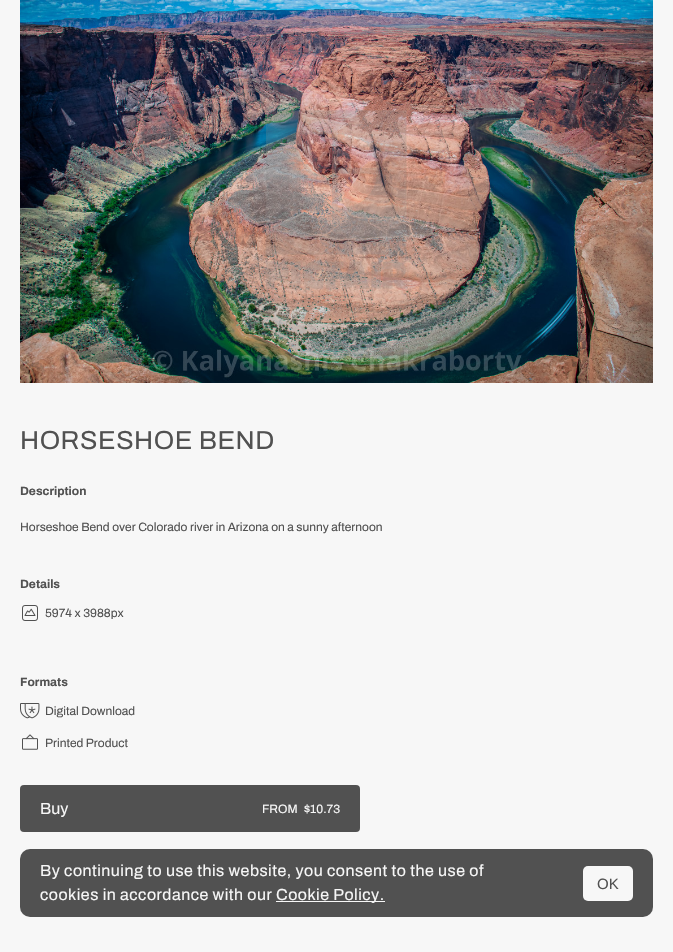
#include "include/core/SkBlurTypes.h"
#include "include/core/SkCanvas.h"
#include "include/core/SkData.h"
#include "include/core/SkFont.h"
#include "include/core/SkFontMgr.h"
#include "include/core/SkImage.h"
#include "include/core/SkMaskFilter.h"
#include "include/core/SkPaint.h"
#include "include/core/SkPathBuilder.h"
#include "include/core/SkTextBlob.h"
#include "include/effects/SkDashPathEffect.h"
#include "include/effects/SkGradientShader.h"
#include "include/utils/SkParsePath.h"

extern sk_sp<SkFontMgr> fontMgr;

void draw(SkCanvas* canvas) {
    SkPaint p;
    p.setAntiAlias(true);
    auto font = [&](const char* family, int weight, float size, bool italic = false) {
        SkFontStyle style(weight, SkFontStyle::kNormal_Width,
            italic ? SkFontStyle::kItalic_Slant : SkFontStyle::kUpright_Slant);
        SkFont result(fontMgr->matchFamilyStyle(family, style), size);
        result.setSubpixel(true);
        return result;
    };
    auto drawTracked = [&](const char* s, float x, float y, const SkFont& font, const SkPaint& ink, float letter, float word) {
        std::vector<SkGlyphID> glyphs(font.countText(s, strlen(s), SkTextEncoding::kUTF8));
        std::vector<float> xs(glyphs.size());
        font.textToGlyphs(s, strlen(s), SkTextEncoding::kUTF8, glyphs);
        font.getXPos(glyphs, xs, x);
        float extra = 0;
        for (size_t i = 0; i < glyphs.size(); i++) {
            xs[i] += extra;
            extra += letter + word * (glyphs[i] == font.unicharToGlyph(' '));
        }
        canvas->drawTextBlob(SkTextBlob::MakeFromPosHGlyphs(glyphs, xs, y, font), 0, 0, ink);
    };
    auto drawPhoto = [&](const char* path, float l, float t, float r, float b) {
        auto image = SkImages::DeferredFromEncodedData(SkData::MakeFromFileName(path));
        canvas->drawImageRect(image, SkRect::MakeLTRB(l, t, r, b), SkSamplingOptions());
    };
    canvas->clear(0xFFF7F7F7);
    drawPhoto("media/1.png", 20, 0, 653, 383);
    auto font1 = font("Archivo", 400, 26);
    p.setColor(0xFF515151);
    drawTracked("HORSESHOE BEND", 20, 449, font1, p, 0.5f, 0);
    auto font2 = font("Archivo", 700, 12);
    canvas->drawString("Description", 20, 495, font2, p);
    auto font3 = font("Archivo", 400, 12);
    canvas->drawString("Horseshoe Bend over Colorado river in Arizona on a sunny afternoon", 20, 531, font3, p);
    canvas->drawString("Details", 20, 588, font2, p);
    drawPhoto("media/2.png", 22, 605, 38, 621);
    canvas->drawString("5974 x 3988px", 45, 617, font3, p);
    canvas->drawString("Formats", 20, 686, font2, p);
    drawPhoto("media/3.png", 20, 703, 40, 719);
    canvas->drawString("Digital Download", 45, 715, font3, p);
    drawPhoto("media/4.png", 22, 734, 38, 750);
    canvas->drawString("Printed Product", 45, 747, font3, p);
    canvas->drawRoundRect(SkRect::MakeLTRB(20, 785, 360, 832), 4, 4, p);
    auto font4 = font("Archivo", 400, 16);
    p.setColor(0xFFF7F7F7);
    canvas->drawString("Buy", 40, 814, font4, p);
    canvas->drawString("FROM", 262, 813, font3, p);
    canvas->drawString("$10.73", 304, 813, font3, p);
    p.setColor(0xFF515151);
    canvas->drawRoundRect(SkRect::MakeLTRB(20, 849, 653, 917), 10, 10, p);
    p.setColor(0xFFF7F7F7);
    drawTracked("By continuing to use this website, you consent to the use of", 40, 876, font4, p, 0.5f, 0);
    drawTracked("cookies in accordance with our", 40, 900, font4, p, 0.5f, 0);
    canvas->drawRect(SkRect::MakeLTRB(276, 901, 385, 902), p);
    drawTracked("Cookie Policy.", 276, 900, font4, p, 0.5f, 0);
    canvas->drawRoundRect(SkRect::MakeLTRB(583, 866, 633, 901), 5, 5, p);
    auto font5 = font("Liberation Sans", 400, 15);
    p.setColor(0xFF515151);
    canvas->drawString("OK", 597, 889, font5, p);
}
